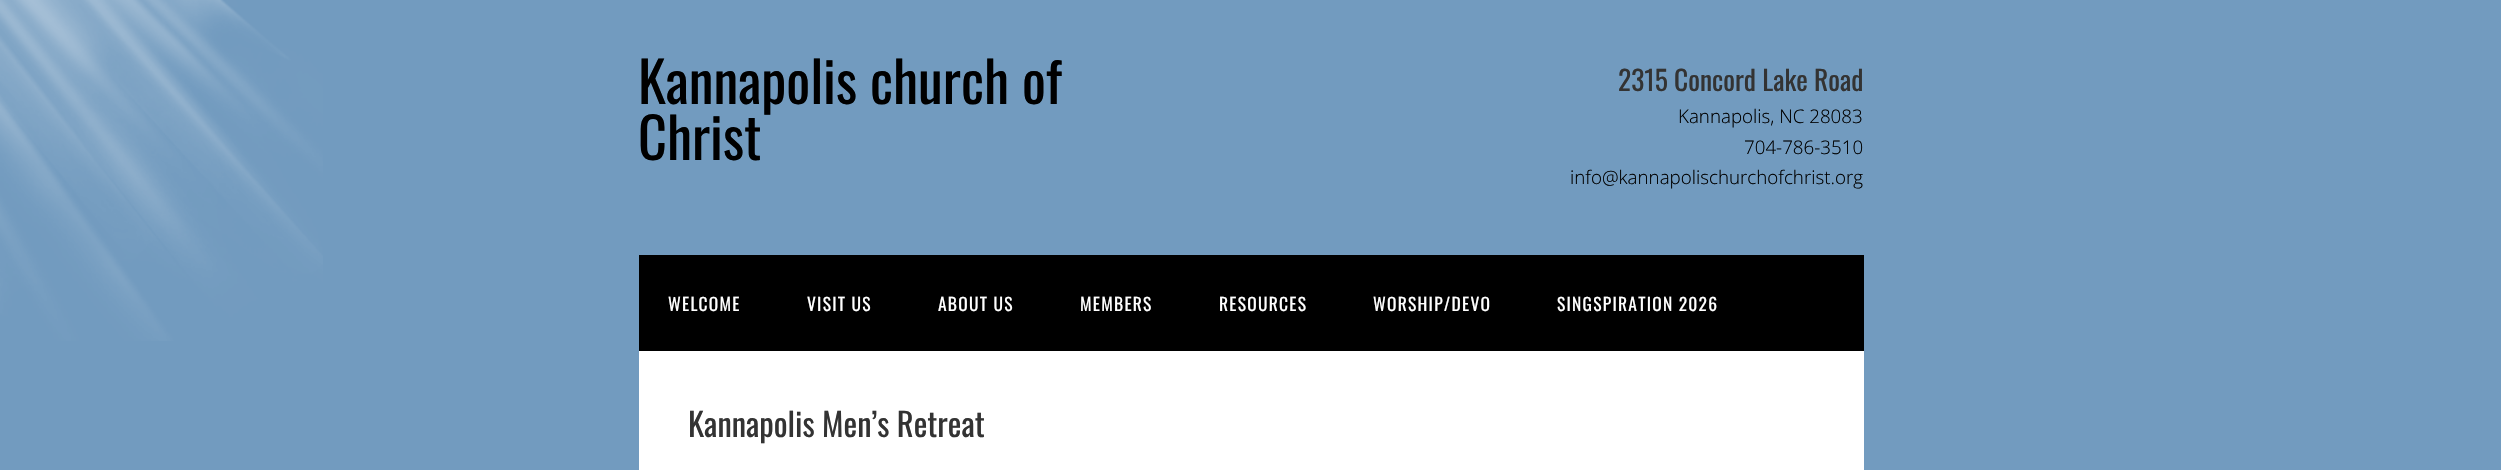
#include "include/core/SkBlurTypes.h"
#include "include/core/SkCanvas.h"
#include "include/core/SkData.h"
#include "include/core/SkFont.h"
#include "include/core/SkFontMgr.h"
#include "include/core/SkImage.h"
#include "include/core/SkMaskFilter.h"
#include "include/core/SkPaint.h"
#include "include/core/SkPathBuilder.h"
#include "include/core/SkTextBlob.h"
#include "include/effects/SkDashPathEffect.h"
#include "include/effects/SkGradientShader.h"
#include "include/utils/SkParsePath.h"

extern sk_sp<SkFontMgr> fontMgr;

void draw(SkCanvas* canvas) {
    SkPaint p;
    p.setAntiAlias(true);
    auto font = [&](const char* family, int weight, float size, bool italic = false) {
        SkFontStyle style(weight, SkFontStyle::kNormal_Width,
            italic ? SkFontStyle::kItalic_Slant : SkFontStyle::kUpright_Slant);
        SkFont result(fontMgr->matchFamilyStyle(family, style), size);
        result.setSubpixel(true);
        return result;
    };
    auto drawTracked = [&](const char* s, float x, float y, const SkFont& font, const SkPaint& ink, float letter, float word) {
        std::vector<SkGlyphID> glyphs(font.countText(s, strlen(s), SkTextEncoding::kUTF8));
        std::vector<float> xs(glyphs.size());
        font.textToGlyphs(s, strlen(s), SkTextEncoding::kUTF8, glyphs);
        font.getXPos(glyphs, xs, x);
        float extra = 0;
        for (size_t i = 0; i < glyphs.size(); i++) {
            xs[i] += extra;
            extra += letter + word * (glyphs[i] == font.unicharToGlyph(' '));
        }
        canvas->drawTextBlob(SkTextBlob::MakeFromPosHGlyphs(glyphs, xs, y, font), 0, 0, ink);
    };
    auto drawPhoto = [&](const char* path, float l, float t, float r, float b) {
        auto image = SkImages::DeferredFromEncodedData(SkData::MakeFromFileName(path));
        canvas->drawImageRect(image, SkRect::MakeLTRB(l, t, r, b), SkSamplingOptions());
    };
    canvas->clear(0xFF729BBF);
    drawPhoto("media/1.png", 0, 0, 323, 341);
    auto font1 = font("Oswald", 400, 56.25f);
    p.setColor(0xFF000000);
    canvas->drawString("Kannapolis church of", 638, 104, font1, p);
    canvas->drawString("Christ", 638, 160, font1, p);
    auto font2 = font("Oswald", 400, 27.5f);
    p.setColor(0xFF333333);
    canvas->drawString("2315 Concord Lake Road", 1618, 91, font2, p);
    auto font3 = font("Open Sans", 300, 18.75f);
    p.setColor(0xFF000000);
    {
        const struct { const char* s; float x, y; } items[] = {
            {"Kannapolis, NC 28083", 1678, 123},
            {"704-786-3510", 1744, 154},
            {"info@kannapolischurchofchrist.org", 1570, 184},
        };
        for (auto [s, x, y] : items) {
            canvas->drawString(s, x, y, font3, p);
        }
    }
    canvas->drawRect(SkRect::MakeLTRB(639, 255, 1864, 351), p);
    auto font4 = font("Oswald", 400, 17.5f);
    p.setColor(0xFFFFFFFF);
    {
        const struct { const char* s; float x, y; } items[] = {
            {"WELCOME", 668, 311},
            {"VISIT US", 807, 311},
            {"ABOUT US", 938, 311},
            {"MEMBERS", 1080, 311},
            {"RESOURCES", 1219, 311},
            {"WORSHIP/DEVO", 1373, 311},
            {"SINGSPIRATION 2026", 1557, 311},
        };
        for (auto [s, x, y] : items) {
            drawTracked(s, x, y, font4, p, 1.25f, 0);
        }
    }
    canvas->drawRect(SkRect::MakeLTRB(639, 351, 1864, 470), p);
    auto font5 = font("Oswald", 400, 32.5f);
    p.setColor(0xFF333333);
    canvas->drawString("Kannapolis Men’s Retreat", 688, 437, font5, p);
}
